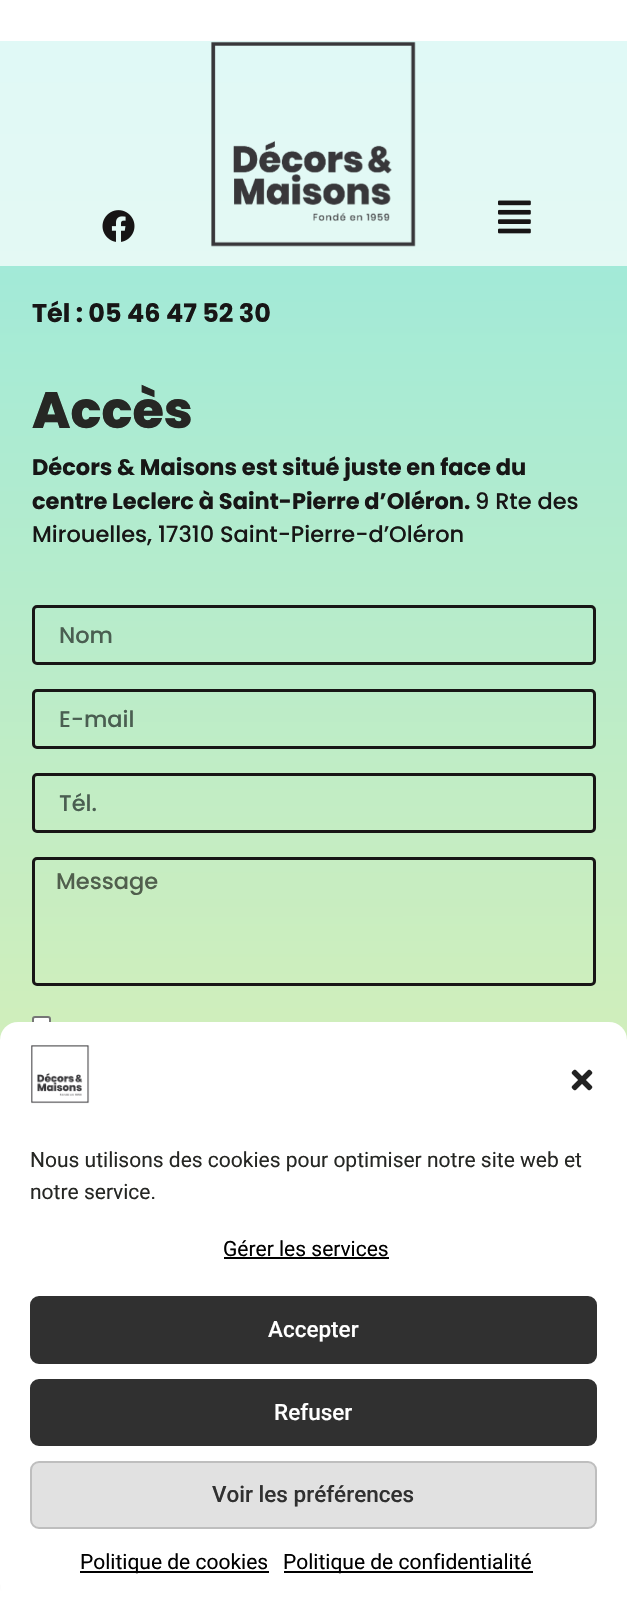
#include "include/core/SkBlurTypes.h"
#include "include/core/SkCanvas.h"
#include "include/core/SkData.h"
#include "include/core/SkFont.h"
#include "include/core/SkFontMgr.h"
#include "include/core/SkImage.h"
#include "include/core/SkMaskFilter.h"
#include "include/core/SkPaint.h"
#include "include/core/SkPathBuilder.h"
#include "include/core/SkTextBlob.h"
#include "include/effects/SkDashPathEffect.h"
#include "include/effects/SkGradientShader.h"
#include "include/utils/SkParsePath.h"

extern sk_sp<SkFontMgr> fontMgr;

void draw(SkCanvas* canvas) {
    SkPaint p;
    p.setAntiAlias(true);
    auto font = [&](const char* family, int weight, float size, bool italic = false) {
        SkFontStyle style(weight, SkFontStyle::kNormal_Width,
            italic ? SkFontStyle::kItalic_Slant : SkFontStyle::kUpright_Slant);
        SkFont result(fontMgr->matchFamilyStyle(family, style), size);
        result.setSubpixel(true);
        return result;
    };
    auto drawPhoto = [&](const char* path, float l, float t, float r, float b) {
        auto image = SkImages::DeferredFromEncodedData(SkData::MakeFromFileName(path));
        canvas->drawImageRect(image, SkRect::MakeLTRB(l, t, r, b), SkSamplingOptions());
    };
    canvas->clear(0xFFFFFFFF);
    {
        const SkColor colors[] = {0xFF95E9E0, 0xFFE6F0AE};
        const float stops[] = {0, 1};
        const SkPoint ends[] = {{313, 41}, {314, 1403}};
        p.setShader(SkGradientShader::MakeLinear(ends, colors, stops, 2, SkTileMode::kClamp));
        p.setAlpha(255);
    }
    canvas->drawRect(SkRect::MakeLTRB(0, 41, 627, 1040), p);
    p.setShader(nullptr);
    p.setColor(0xB3FFFFFF);
    canvas->drawRect(SkRect::MakeLTRB(0, 41, 627, 266), p);
    drawPhoto("media/1.png", 102, 210, 135, 242);
    drawPhoto("media/2.png", 211, 41, 416, 247);
    drawPhoto("media/3.png", 498, 200, 531, 234);
    auto font1 = font("Poppins", 700, 25.5f);
    p.setColor(0xFF171616);
    canvas->drawString("Tél : 05 46 47 52 30", 32, 322, font1, p);
    auto font2 = font("Poppins", 800, 51);
    p.setColor(0xFF262724);
    canvas->drawString("Accès", 32, 428, font2, p);
    auto font3 = font("Poppins", 700, 22.5f);
    p.setColor(0xFF171616);
    canvas->drawString("Décors & Maisons est situé juste en face du", 32, 475, font3, p);
    canvas->drawString("centre Leclerc à Saint-Pierre d’Oléron.", 32, 509, font3, p);
    auto font4 = font("Poppins", 500, 22.5f);
    canvas->drawString("9 Rte des", 475, 509, font4, p);
    canvas->drawString("Mirouelles, 17310 Saint-Pierre-d’Oléron", 32, 542, font4, p);
    p.setStyle(SkPaint::kStroke_Style);
    p.setStrokeWidth(3);
    p.setColor(0xFF181616);
    canvas->drawRoundRect(SkRect::MakeLTRB(33.5f, 606.5f, 594.5f, 663.5f), 3.5f, 3.5f, p);
    p.setStyle(SkPaint::kFill_Style);
    p.setColor(0xFF4A5E51);
    canvas->drawString("Nom", 59, 643, font4, p);
    p.setStyle(SkPaint::kStroke_Style);
    p.setColor(0xFF181616);
    canvas->drawRoundRect(SkRect::MakeLTRB(33.5f, 690.5f, 594.5f, 747.5f), 3.5f, 3.5f, p);
    p.setStyle(SkPaint::kFill_Style);
    p.setColor(0xFF4A5E51);
    canvas->drawString("E-mail", 59, 727, font4, p);
    p.setStyle(SkPaint::kStroke_Style);
    p.setColor(0xFF181616);
    canvas->drawRoundRect(SkRect::MakeLTRB(33.5f, 774.5f, 594.5f, 831.5f), 3.5f, 3.5f, p);
    p.setStyle(SkPaint::kFill_Style);
    p.setColor(0xFF4A5E51);
    canvas->drawString("Tél.", 59, 811, font4, p);
    p.setStyle(SkPaint::kStroke_Style);
    p.setColor(0xFF181616);
    canvas->drawRoundRect(SkRect::MakeLTRB(33.5f, 858.5f, 594.5f, 984.5f), 3.5f, 3.5f, p);
    p.setStyle(SkPaint::kFill_Style);
    p.setColor(0xFF505F4D);
    canvas->drawString("Message", 56, 889, font4, p);
    p.setColor(0xFFFFFFFF);
    canvas->drawRoundRect(SkRect::MakeLTRB(33, 1017, 50, 1034), 2, 2, p);
    p.setStyle(SkPaint::kStroke_Style);
    p.setStrokeWidth(2);
    p.setColor(0xFF767676);
    canvas->drawRoundRect(SkRect::MakeLTRB(33, 1017, 50, 1034), 2, 2, p);
    p.setStyle(SkPaint::kFill_Style);
    p.setColor(0xFF808080);
    p.setMaskFilter(SkMaskFilter::MakeBlur(kNormal_SkBlurStyle, 4));
    canvas->drawRoundRect(SkRect::MakeLTRB(-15, 1491, 105, 1581), 3, 3, p);
    p.setMaskFilter(nullptr);
    p.setColor(0xFFFFFFFF);
    canvas->drawRoundRect(SkRect::MakeLTRB(0, 1022, 627, 1602), 18, 18, p);
    drawPhoto("media/4.png", 31, 1045, 90, 1104);
    drawPhoto("media/5.png", 571, 1069, 593, 1091);
    auto font5 = font("Roboto", 400, 21);
    p.setColor(0xFF262724);
    canvas->drawString("Nous utilisons des cookies pour optimiser notre site web et", 30, 1167, font5, p);
    canvas->drawString("notre service.", 30, 1199, font5, p);
    p.setColor(0xFF000000);
    canvas->drawString("Gérer les services", 223, 1256, font5, p);
    canvas->drawRect(SkRect::MakeLTRB(224, 1257, 389, 1259), p);
    p.setColor(0xFF303030);
    canvas->drawRoundRect(SkRect::MakeLTRB(31, 1297, 596, 1363), 8, 8, p);
    p.setStyle(SkPaint::kStroke_Style);
    canvas->drawRoundRect(SkRect::MakeLTRB(31, 1297, 596, 1363), 8, 8, p);
    auto font6 = font("Roboto", 500, 22.5f);
    p.setStyle(SkPaint::kFill_Style);
    p.setColor(0xFFFFFFFF);
    canvas->drawString("Accepter", 268, 1337, font6, p);
    p.setColor(0xFF303030);
    canvas->drawRoundRect(SkRect::MakeLTRB(31, 1380, 596, 1445), 8, 8, p);
    p.setStyle(SkPaint::kStroke_Style);
    canvas->drawRoundRect(SkRect::MakeLTRB(31, 1380, 596, 1445), 8, 8, p);
    p.setStyle(SkPaint::kFill_Style);
    p.setColor(0xFFFFFFFF);
    canvas->drawString("Refuser", 274, 1420, font6, p);
    p.setColor(0xFFE1E1E1);
    canvas->drawRoundRect(SkRect::MakeLTRB(31, 1462, 596, 1528), 8, 8, p);
    p.setStyle(SkPaint::kStroke_Style);
    p.setColor(0xFFBEBEBE);
    canvas->drawRoundRect(SkRect::MakeLTRB(31, 1462, 596, 1528), 8, 8, p);
    p.setStyle(SkPaint::kFill_Style);
    p.setColor(0xFF303030);
    canvas->drawString("Voir les préférences", 212, 1502, font6, p);
    p.setColor(0xFF000000);
    canvas->drawRect(SkRect::MakeLTRB(80, 1571, 269, 1573), p);
    canvas->drawString("Politique de cookies", 80, 1569, font5, p);
    canvas->drawRect(SkRect::MakeLTRB(284, 1571, 533, 1573), p);
    canvas->drawString("Politique de confidentialité", 283, 1569, font5, p);
}
